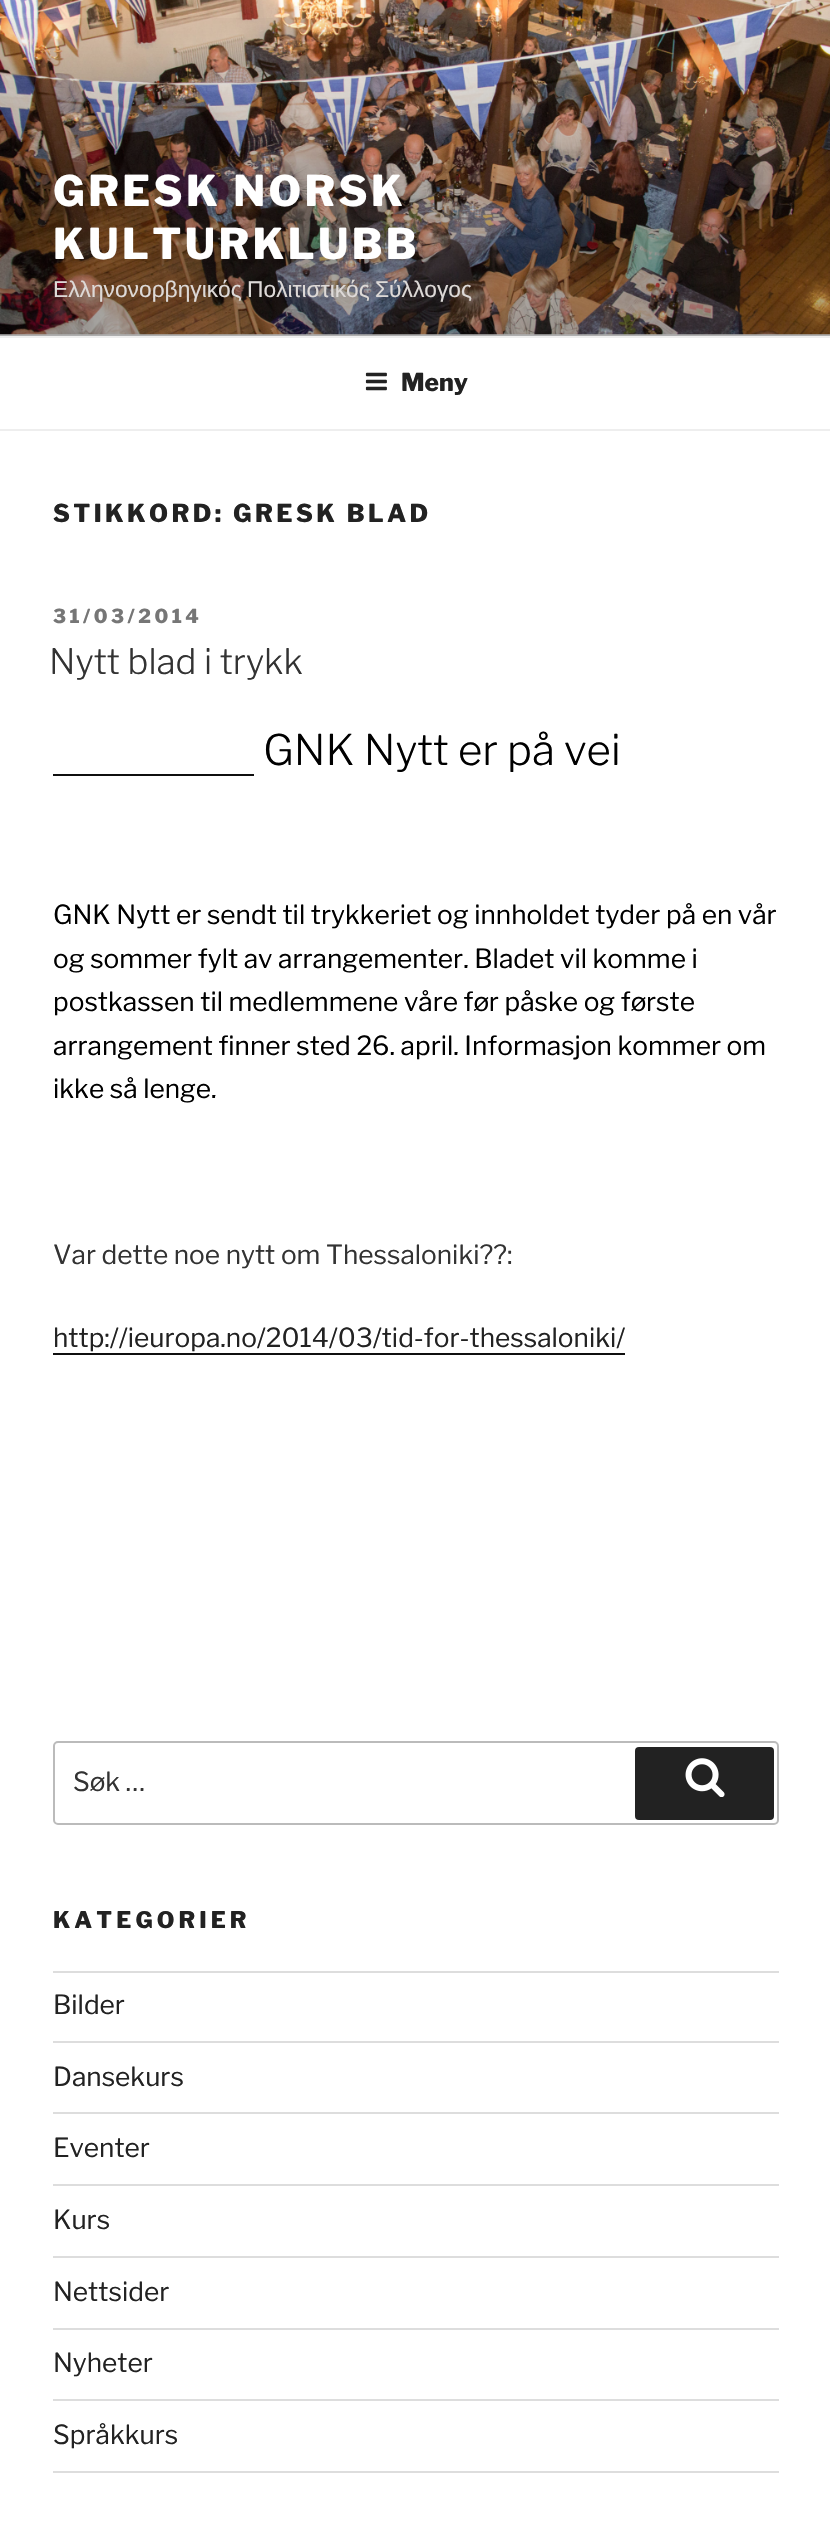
#include "include/core/SkBlurTypes.h"
#include "include/core/SkCanvas.h"
#include "include/core/SkData.h"
#include "include/core/SkFont.h"
#include "include/core/SkFontMgr.h"
#include "include/core/SkImage.h"
#include "include/core/SkMaskFilter.h"
#include "include/core/SkPaint.h"
#include "include/core/SkPathBuilder.h"
#include "include/core/SkTextBlob.h"
#include "include/effects/SkDashPathEffect.h"
#include "include/effects/SkGradientShader.h"
#include "include/utils/SkParsePath.h"

extern sk_sp<SkFontMgr> fontMgr;

void draw(SkCanvas* canvas) {
    SkPaint p;
    p.setAntiAlias(true);
    auto font = [&](const char* family, int weight, float size, bool italic = false) {
        SkFontStyle style(weight, SkFontStyle::kNormal_Width,
            italic ? SkFontStyle::kItalic_Slant : SkFontStyle::kUpright_Slant);
        SkFont result(fontMgr->matchFamilyStyle(family, style), size);
        result.setSubpixel(true);
        return result;
    };
    auto drawTracked = [&](const char* s, float x, float y, const SkFont& font, const SkPaint& ink, float letter, float word) {
        std::vector<SkGlyphID> glyphs(font.countText(s, strlen(s), SkTextEncoding::kUTF8));
        std::vector<float> xs(glyphs.size());
        font.textToGlyphs(s, strlen(s), SkTextEncoding::kUTF8, glyphs);
        font.getXPos(glyphs, xs, x);
        float extra = 0;
        for (size_t i = 0; i < glyphs.size(); i++) {
            xs[i] += extra;
            extra += letter + word * (glyphs[i] == font.unicharToGlyph(' '));
        }
        canvas->drawTextBlob(SkTextBlob::MakeFromPosHGlyphs(glyphs, xs, y, font), 0, 0, ink);
    };
    auto drawPhoto = [&](const char* path, float l, float t, float r, float b) {
        auto image = SkImages::DeferredFromEncodedData(SkData::MakeFromFileName(path));
        canvas->drawImageRect(image, SkRect::MakeLTRB(l, t, r, b), SkSamplingOptions());
    };
    canvas->clear(0xFFFFFFFF);
    p.setColor(0xFFFAFAFA);
    canvas->drawRect(SkRect::MakeLTRB(0, 334, 830, 336), p);
    drawPhoto("media/1.png", 0, 0, 830, 335);
    {
        const SkColor colors[] = {0x00000000, 0x4D000000, 0x4D000000};
        const float stops[] = {0, 0.75f, 1};
        const SkPoint ends[] = {{416, 0}, {416, 336}};
        p.setShader(SkGradientShader::MakeLinear(ends, colors, stops, 3, SkTileMode::kClamp));
        p.setAlpha(255);
    }
    canvas->drawRect(SkRect::MakeLTRB(0, 18, 830, 336), p);
    auto font1 = font("Libre Franklin", 800, 42);
    p.setShader(nullptr);
    p.setColor(0xFFFFFFFF);
    drawTracked("GRESK NORSK", 53, 206, font1, p, 3.4f, 0);
    drawTracked("KULTURKLUBB", 53, 259, font1, p, 3.4f, 0);
    auto font2 = font("Liberation Sans", 400, 22.75f);
    p.setColor(0xFFDDD9D7);
    drawTracked("Ελληνονορβηγικός Πολιτιστικός Σύλλογος", 53, 297, font2, p, 0, -1);
    p.setColor(0xFFEEEEEE);
    canvas->drawRect(SkRect::MakeLTRB(0, 336, 830, 338), p);
    canvas->drawRect(SkRect::MakeLTRB(0, 429, 830, 431), p);
    drawPhoto("media/2.png", 365, 372, 387, 391);
    auto font3 = font("Libre Franklin", 800, 24.5f);
    p.setColor(0xFF222222);
    canvas->drawString("Meny", 401, 391, font3, p);
    drawTracked("STIKKORD: GRESK BLAD", 53, 522, font3, p, 3.4f, 0);
    auto font4 = font("Libre Franklin", 800, 19.25f);
    p.setColor(0xFF767676);
    drawTracked("31/03/2014", 53, 623, font4, p, 3.5f, 0);
    auto font5 = font("Libre Franklin", 300, 35);
    p.setColor(0xFF333333);
    canvas->drawString("Nytt blad i trykk", 49, 674, font5, p);
    auto font6 = font("Libre Franklin", 300, 42);
    p.setColor(0xFF000000);
    canvas->drawString("GNK Nytt er på vei", 263, 765, font6, p);
    p.setColor(0xFF0F0F0F);
    canvas->drawRect(SkRect::MakeLTRB(53, 774, 254, 776), p);
    auto font7 = font("Libre Franklin", 400, 26.25f);
    p.setColor(0xFF000000);
    {
        const struct { const char* s; float x, y; } items[] = {
            {"GNK Nytt er sendt til trykkeriet og innholdet tyder på en vår", 53, 924},
            {"og sommer fylt av arrangementer. Bladet vil komme i", 53, 968},
            {"postkassen til medlemmene våre før påske og første", 53, 1011},
            {"arrangement finner sted 26. april. Informasjon kommer om", 53, 1055},
            {"ikke så lenge.", 53, 1098},
        };
        for (auto [s, x, y] : items) {
            canvas->drawString(s, x, y, font7, p);
        }
    }
    p.setColor(0xFF333333);
    canvas->drawString("Var dette noe nytt om Thessaloniki?\077:", 53, 1264, font7, p);
    p.setColor(0xFF222222);
    canvas->drawString("http://ieuropa.no/2014/03/tid-for-thessaloniki/", 53, 1347, font7, p);
    p.setColor(0xFF0F0F0F);
    canvas->drawRect(SkRect::MakeLTRB(53, 1353, 625, 1355), p);
    p.setStyle(SkPaint::kStroke_Style);
    p.setStrokeWidth(2);
    p.setColor(0xFFBBBBBB);
    canvas->drawRoundRect(SkRect::MakeLTRB(54, 1742, 778, 1824), 4, 4, p);
    p.setStyle(SkPaint::kFill_Style);
    p.setColor(0xFF333333);
    canvas->drawString("Søk …", 73, 1791, font7, p);
    p.setColor(0xFF222222);
    canvas->drawRoundRect(SkRect::MakeLTRB(635, 1747, 774, 1820), 4, 4, p);
    drawPhoto("media/3.png", 685, 1758, 725, 1797);
    auto font8 = font("Libre Franklin", 800, 22.75f);
    drawTracked("KATEGORIER", 53, 1928, font8, p, 4.1f, 0);
    p.setColor(0xFFDDDDDD);
    canvas->drawRect(SkRect::MakeLTRB(53, 1971, 779, 1973), p);
    canvas->drawRect(SkRect::MakeLTRB(53, 2041, 779, 2043), p);
    p.setColor(0xFF222222);
    canvas->drawString("Bilder", 53, 2014, font7, p);
    p.setColor(0xFFDDDDDD);
    canvas->drawRect(SkRect::MakeLTRB(53, 2112, 779, 2114), p);
    p.setColor(0xFF222222);
    canvas->drawString("Dansekurs", 53, 2086, font7, p);
    p.setColor(0xFFDDDDDD);
    canvas->drawRect(SkRect::MakeLTRB(53, 2184, 779, 2186), p);
    p.setColor(0xFF222222);
    canvas->drawString("Eventer", 53, 2157, font7, p);
    p.setColor(0xFFDDDDDD);
    canvas->drawRect(SkRect::MakeLTRB(53, 2256, 779, 2258), p);
    p.setColor(0xFF222222);
    canvas->drawString("Kurs", 53, 2229, font7, p);
    p.setColor(0xFFDDDDDD);
    canvas->drawRect(SkRect::MakeLTRB(53, 2328, 779, 2330), p);
    p.setColor(0xFF222222);
    canvas->drawString("Nettsider", 53, 2301, font7, p);
    p.setColor(0xFFDDDDDD);
    canvas->drawRect(SkRect::MakeLTRB(53, 2399, 779, 2401), p);
    p.setColor(0xFF222222);
    canvas->drawString("Nyheter", 53, 2372, font7, p);
    p.setColor(0xFFDDDDDD);
    canvas->drawRect(SkRect::MakeLTRB(53, 2471, 779, 2473), p);
    p.setColor(0xFF222222);
    canvas->drawString("Språkkurs", 53, 2444, font7, p);
}
